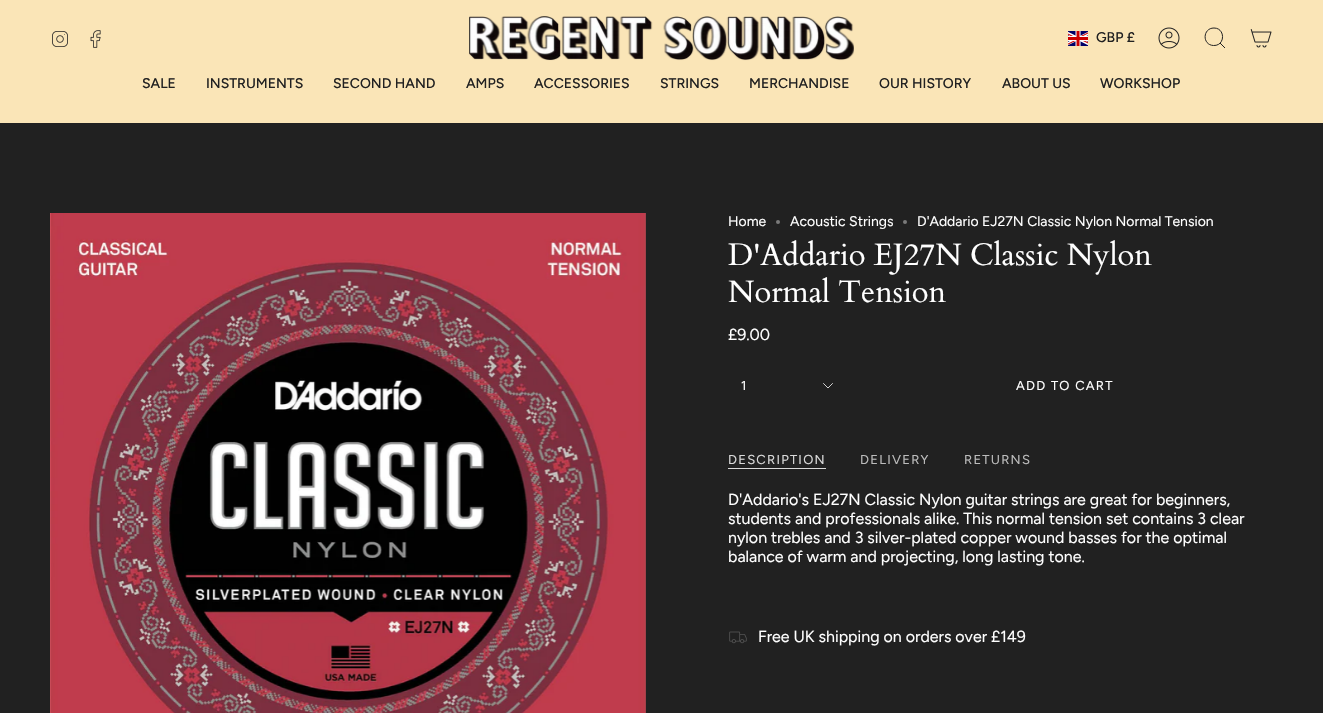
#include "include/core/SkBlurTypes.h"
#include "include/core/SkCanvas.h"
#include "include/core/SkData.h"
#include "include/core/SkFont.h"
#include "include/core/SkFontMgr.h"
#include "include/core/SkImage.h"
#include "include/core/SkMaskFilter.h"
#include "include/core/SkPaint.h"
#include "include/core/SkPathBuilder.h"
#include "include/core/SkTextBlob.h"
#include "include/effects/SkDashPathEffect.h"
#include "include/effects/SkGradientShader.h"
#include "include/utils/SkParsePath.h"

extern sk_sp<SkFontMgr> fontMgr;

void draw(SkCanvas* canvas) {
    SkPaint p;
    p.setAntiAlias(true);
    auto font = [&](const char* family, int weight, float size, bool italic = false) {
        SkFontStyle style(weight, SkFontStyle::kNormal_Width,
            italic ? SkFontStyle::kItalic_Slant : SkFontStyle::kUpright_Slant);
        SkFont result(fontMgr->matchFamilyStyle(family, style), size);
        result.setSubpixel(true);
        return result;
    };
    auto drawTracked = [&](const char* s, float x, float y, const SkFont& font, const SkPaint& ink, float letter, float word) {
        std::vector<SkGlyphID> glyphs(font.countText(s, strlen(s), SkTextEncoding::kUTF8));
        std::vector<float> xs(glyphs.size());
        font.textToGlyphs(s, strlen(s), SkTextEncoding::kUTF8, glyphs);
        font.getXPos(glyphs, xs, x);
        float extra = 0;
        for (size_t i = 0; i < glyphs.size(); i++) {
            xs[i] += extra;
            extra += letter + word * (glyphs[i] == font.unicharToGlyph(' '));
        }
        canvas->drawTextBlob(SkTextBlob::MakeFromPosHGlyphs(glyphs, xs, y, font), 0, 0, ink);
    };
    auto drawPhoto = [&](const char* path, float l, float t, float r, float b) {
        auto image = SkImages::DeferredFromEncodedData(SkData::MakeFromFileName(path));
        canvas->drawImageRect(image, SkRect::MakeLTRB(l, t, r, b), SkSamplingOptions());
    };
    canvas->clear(0xFF212121);
    p.setColor(0xFFFAE5B7);
    canvas->drawRect(SkRect::MakeLTRB(0, 0, 1323, 123), p);
    drawPhoto("media/1.png", 52, 31, 68, 47);
    drawPhoto("media/2.png", 90, 30, 101, 48);
    drawPhoto("media/3.png", 469, 16, 854, 61);
    drawPhoto("media/4.png", 1068, 31, 1088, 46);
    auto font1 = font("Figtree", 500, 14);
    p.setColor(0xFF212121);
    canvas->drawString("GBP £", 1096, 42, font1, p);
    drawPhoto("media/5.png", 1158, 27, 1180, 49);
    p.setStyle(SkPaint::kStroke_Style);
    p.setStrokeWidth(1);
    canvas->drawPath(SkPathBuilder().moveTo(1214, 28).cubicTo(1225.5f, 28, 1225.5f, 46, 1213.5f, 45.5f).cubicTo(1202, 45, 1202.5f, 28, 1214, 28).close().moveTo(1220, 43).lineTo(1225, 48).detach(), p);
    drawPhoto("media/6.png", 1250, 29, 1272, 48);
    p.setStyle(SkPaint::kFill_Style);
    {
        const struct { const char* s; float x, y; } items[] = {
            {"SALE", 142, 88},
            {"INSTRUMENTS", 206, 88},
            {"SECOND HAND", 333, 88},
            {"AMPS", 466, 88},
            {"ACCESSORIES", 534, 88},
            {"STRINGS", 660, 88},
            {"MERCHANDISE", 749, 88},
            {"OUR HISTORY", 879, 88},
            {"ABOUT US", 1002, 88},
            {"WORKSHOP", 1100, 88},
        };
        for (auto [s, x, y] : items) {
            canvas->drawString(s, x, y, font1, p);
        }
    }
    drawPhoto("media/7.png", 50, 213, 646, 713);
    auto font2 = font("Figtree", 400, 14);
    p.setColor(0xFFFFFFFF);
    canvas->drawString("Home", 728, 226, font2, p);
    p.setColor(0xFF7A7A7A);
    canvas->drawCircle(778, 222, 2, p);
    p.setColor(0xFFFFFFFF);
    canvas->drawString("Acoustic Strings", 790, 226, font2, p);
    p.setColor(0xFF7A7A7A);
    canvas->drawCircle(905, 222, 2, p);
    p.setColor(0xFFFFFFFF);
    canvas->drawString("D'Addario EJ27N Classic Nylon Normal Tension", 917, 226, font2, p);
    auto font3 = font("Cardo", 400, 31);
    canvas->drawString("D'Addario EJ27N Classic Nylon", 728, 265, font3, p);
    canvas->drawString("Normal Tension", 728, 302, font3, p);
    auto font4 = font("Figtree", 400, 16);
    canvas->drawString("£9.00", 728, 340, font4, p);
    auto font5 = font("Figtree", 400, 13);
    canvas->drawString("1", 741, 390, font5, p);
    p.setStyle(SkPaint::kStroke_Style);
    p.setStrokeWidth(0.8f);
    p.setStrokeCap(SkPaint::kRound_Cap);
    p.setStrokeJoin(SkPaint::kRound_Join);
    canvas->drawPath(SkPathBuilder().moveTo(823.5f, 383.5f).lineTo(828, 388).lineTo(832.5f, 383.5f).detach(), p);
    p.setStyle(SkPaint::kFill_Style);
    drawTracked("ADD TO CART", 1016, 390, font5, p, 1.25f, 0);
    p.setColor(0xFFD9D9D9);
    drawTracked("DESCRIPTION", 728, 464, font5, p, 1.25f, 0);
    canvas->drawRect(SkRect::MakeLTRB(728, 468, 826, 469), p);
    p.setColor(0xFFBCBCBC);
    drawTracked("DELIVERY", 860, 464, font5, p, 1.25f, 0);
    drawTracked("RETURNS", 964, 464, font5, p, 1.25f, 0);
    p.setColor(0xFFFFFFFF);
    {
        const struct { const char* s; float x, y; } items[] = {
            {"D'Addario's EJ27N Classic Nylon guitar strings are great for beginners,", 728, 505},
            {"students and professionals alike. This normal tension set contains 3 clear", 728, 524},
            {"nylon trebles and 3 silver-plated copper wound basses for the optimal", 728, 543},
            {"balance of warm and projecting, long lasting tone.", 728, 562},
        };
        for (auto [s, x, y] : items) {
            canvas->drawString(s, x, y, font4, p);
        }
    }
    drawPhoto("media/8.png", 729, 631, 747, 644);
    canvas->drawString("Free UK shipping on orders over £149", 758, 642, font4, p);
}
